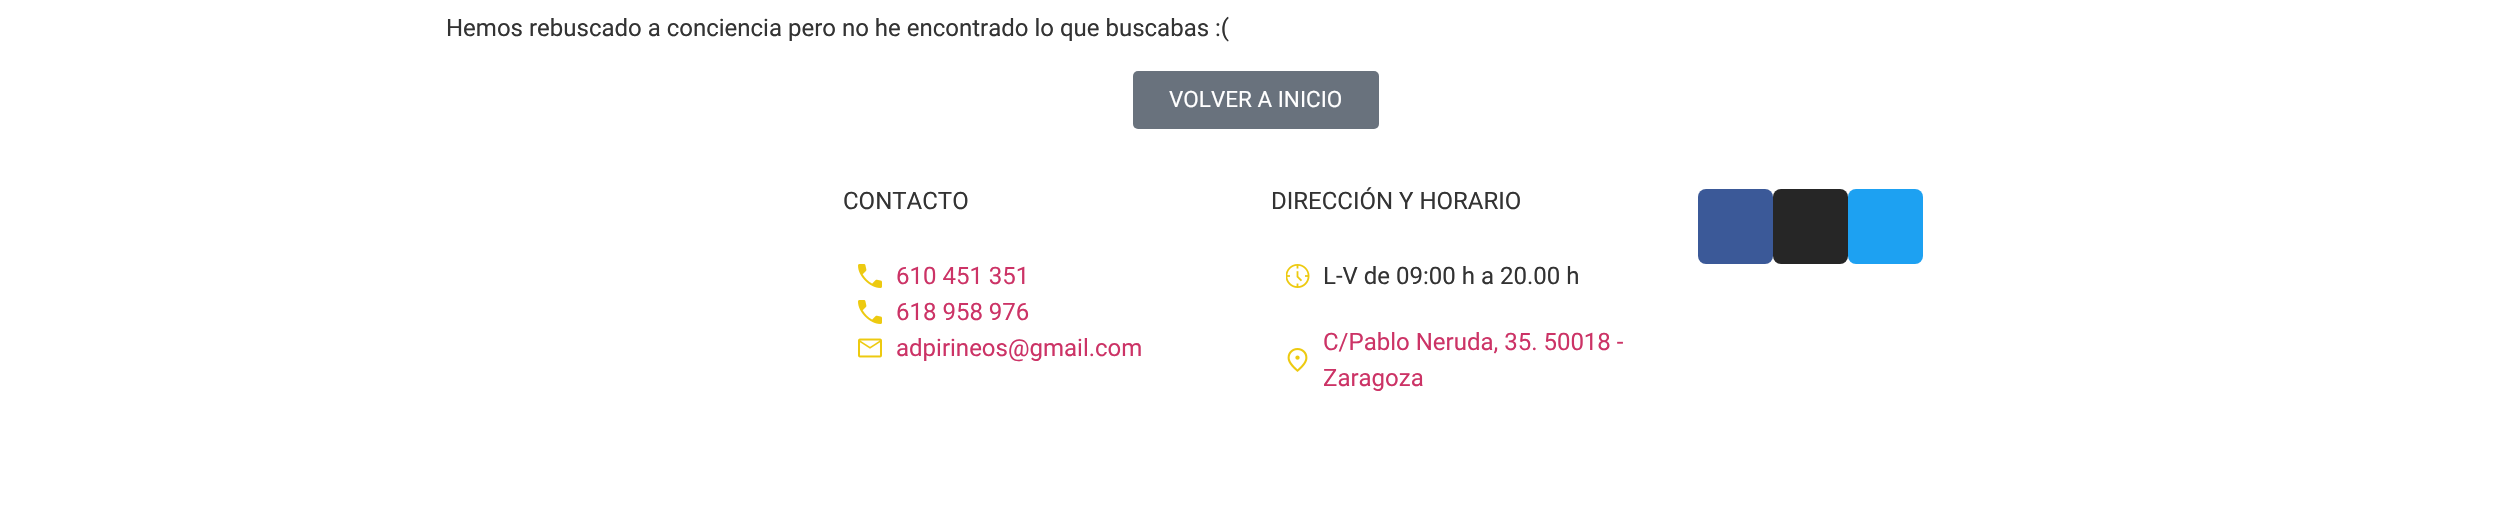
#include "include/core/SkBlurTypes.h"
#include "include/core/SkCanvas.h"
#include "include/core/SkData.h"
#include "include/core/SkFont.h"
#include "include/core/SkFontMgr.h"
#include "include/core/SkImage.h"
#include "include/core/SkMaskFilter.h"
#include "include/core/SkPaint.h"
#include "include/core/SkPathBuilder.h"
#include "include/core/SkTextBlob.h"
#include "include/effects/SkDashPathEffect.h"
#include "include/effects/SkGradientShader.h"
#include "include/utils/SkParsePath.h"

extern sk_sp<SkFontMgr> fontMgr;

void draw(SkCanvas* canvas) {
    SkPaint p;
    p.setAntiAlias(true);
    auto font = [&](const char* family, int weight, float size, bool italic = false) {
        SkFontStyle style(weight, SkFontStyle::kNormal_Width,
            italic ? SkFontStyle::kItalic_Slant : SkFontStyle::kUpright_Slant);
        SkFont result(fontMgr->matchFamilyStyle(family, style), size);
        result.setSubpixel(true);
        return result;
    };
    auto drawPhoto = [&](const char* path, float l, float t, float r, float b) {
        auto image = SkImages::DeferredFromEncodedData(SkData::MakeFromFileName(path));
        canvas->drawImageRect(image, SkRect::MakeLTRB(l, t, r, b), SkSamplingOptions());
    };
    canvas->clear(0xFFFFFFFF);
    auto font1 = font("Roboto", 400, 24);
    p.setColor(0xFF333333);
    canvas->drawString("Hemos rebuscado a conciencia pero no he encontrado lo que buscabas :(", 446, 36, font1, p);
    p.setColor(0xFF69727D);
    canvas->drawRoundRect(SkRect::MakeLTRB(1133, 71, 1379, 129), 5, 5, p);
    auto font2 = font("Roboto", 400, 22.5f);
    p.setColor(0xFFFFFFFF);
    canvas->drawString("VOLVER A INICIO", 1169, 107, font2, p);
    p.setColor(0xFF333333);
    canvas->drawString("CONTACTO", 843, 209, font1, p);
    drawPhoto("media/1.png", 858, 264, 882, 288);
    p.setColor(0xFFCC3366);
    canvas->drawString("610 451 351", 896, 284, font1, p);
    drawPhoto("media/1.png", 858, 300, 882, 324);
    canvas->drawString("618 958 976", 896, 320, font1, p);
    drawPhoto("media/2.png", 858, 338, 882, 358);
    canvas->drawString("adpirineos@gmail.com", 896, 356, font1, p);
    p.setColor(0xFF333333);
    canvas->drawString("DIRECCIÓN Y HORARIO", 1271, 209, font1, p);
    drawPhoto("media/3.png", 1286, 264, 1310, 288);
    canvas->drawString("L-V de 09:00 h a 20.00 h", 1323, 284, font1, p);
    drawPhoto("media/4.png", 1287, 348, 1308, 372);
    p.setColor(0xFFCC3366);
    canvas->drawString("C/Pablo Neruda, 35. 50018 -", 1323, 350, font1, p);
    canvas->drawString("Zaragoza", 1323, 386, font1, p);
    p.setColor(0xFF3B5998);
    canvas->drawRoundRect(SkRect::MakeLTRB(1698, 189, 1773, 264), 8, 8, p);
    p.setColor(0xFF262626);
    canvas->drawRoundRect(SkRect::MakeLTRB(1773, 189, 1848, 264), 8, 8, p);
    p.setColor(0xFF1DA1F2);
    canvas->drawRoundRect(SkRect::MakeLTRB(1848, 189, 1923, 264), 8, 8, p);
}
